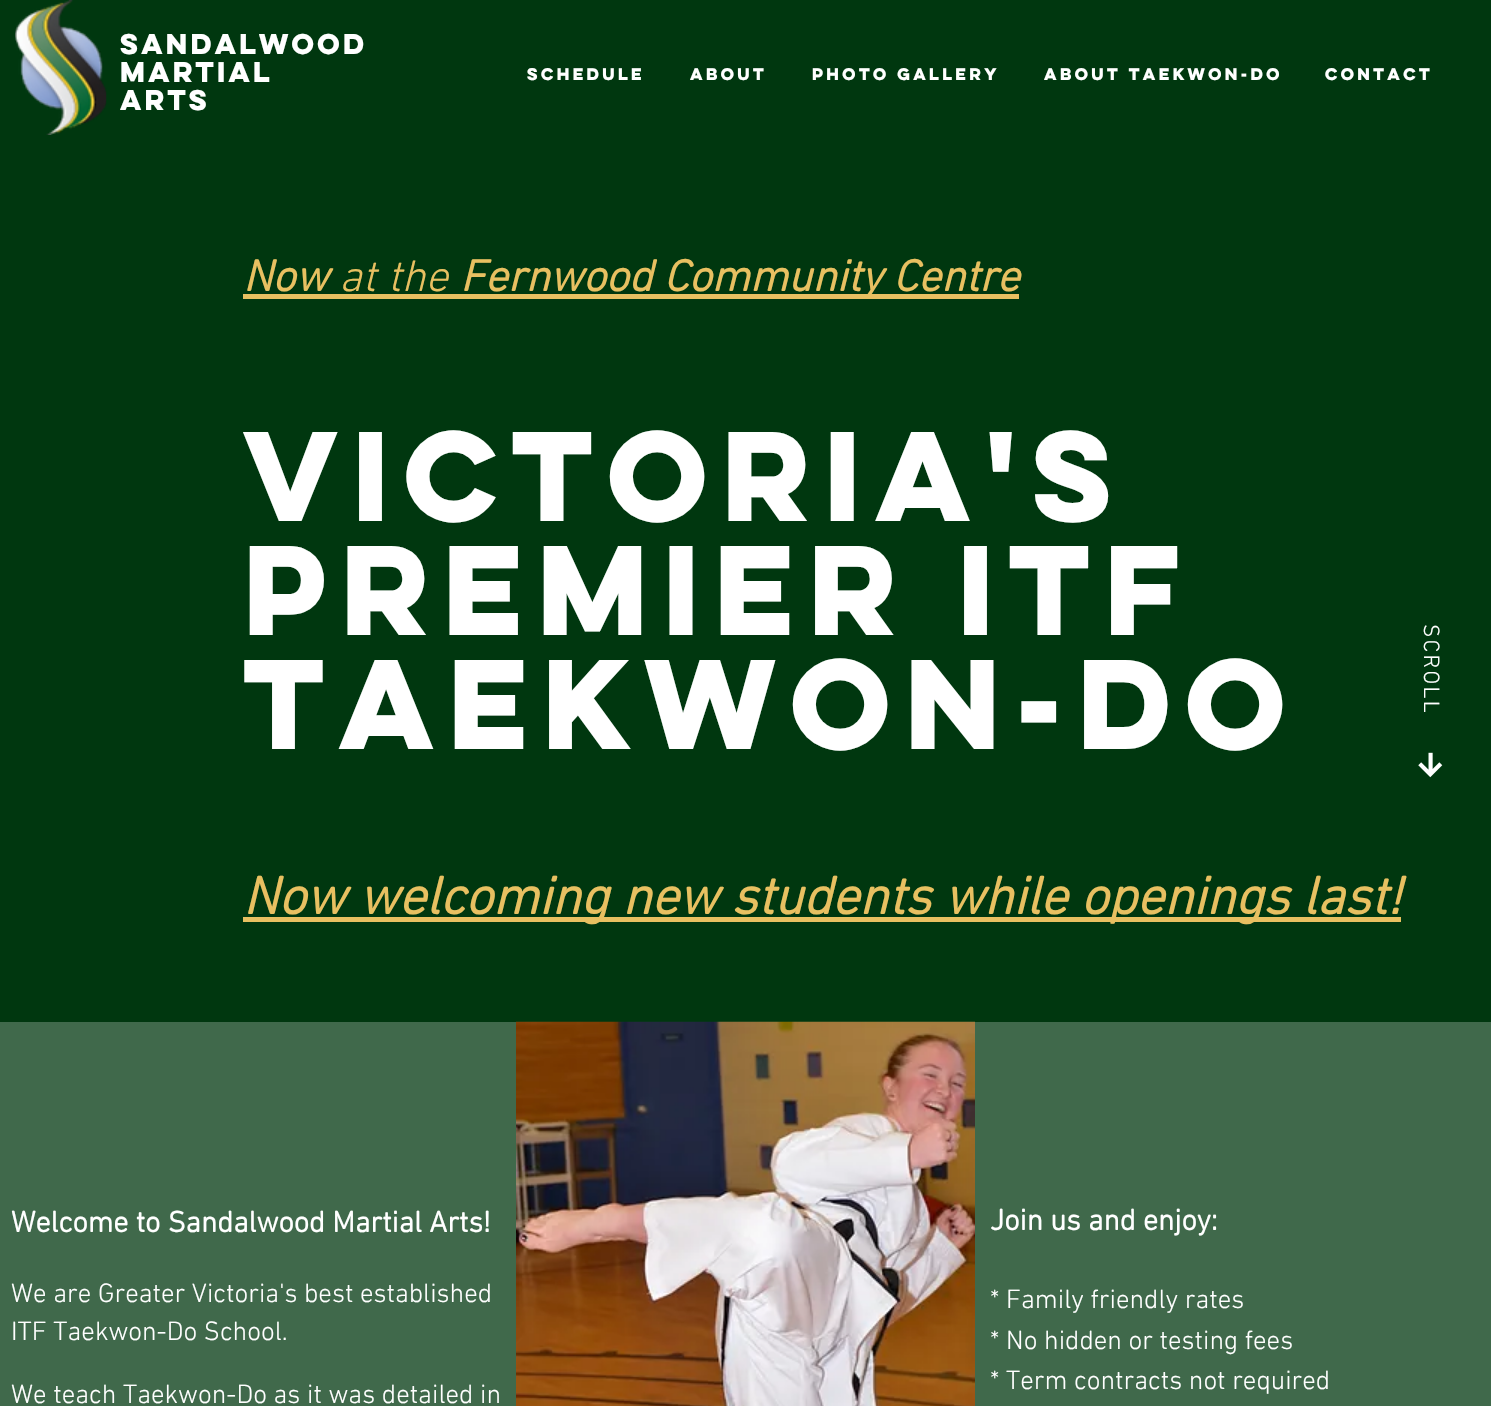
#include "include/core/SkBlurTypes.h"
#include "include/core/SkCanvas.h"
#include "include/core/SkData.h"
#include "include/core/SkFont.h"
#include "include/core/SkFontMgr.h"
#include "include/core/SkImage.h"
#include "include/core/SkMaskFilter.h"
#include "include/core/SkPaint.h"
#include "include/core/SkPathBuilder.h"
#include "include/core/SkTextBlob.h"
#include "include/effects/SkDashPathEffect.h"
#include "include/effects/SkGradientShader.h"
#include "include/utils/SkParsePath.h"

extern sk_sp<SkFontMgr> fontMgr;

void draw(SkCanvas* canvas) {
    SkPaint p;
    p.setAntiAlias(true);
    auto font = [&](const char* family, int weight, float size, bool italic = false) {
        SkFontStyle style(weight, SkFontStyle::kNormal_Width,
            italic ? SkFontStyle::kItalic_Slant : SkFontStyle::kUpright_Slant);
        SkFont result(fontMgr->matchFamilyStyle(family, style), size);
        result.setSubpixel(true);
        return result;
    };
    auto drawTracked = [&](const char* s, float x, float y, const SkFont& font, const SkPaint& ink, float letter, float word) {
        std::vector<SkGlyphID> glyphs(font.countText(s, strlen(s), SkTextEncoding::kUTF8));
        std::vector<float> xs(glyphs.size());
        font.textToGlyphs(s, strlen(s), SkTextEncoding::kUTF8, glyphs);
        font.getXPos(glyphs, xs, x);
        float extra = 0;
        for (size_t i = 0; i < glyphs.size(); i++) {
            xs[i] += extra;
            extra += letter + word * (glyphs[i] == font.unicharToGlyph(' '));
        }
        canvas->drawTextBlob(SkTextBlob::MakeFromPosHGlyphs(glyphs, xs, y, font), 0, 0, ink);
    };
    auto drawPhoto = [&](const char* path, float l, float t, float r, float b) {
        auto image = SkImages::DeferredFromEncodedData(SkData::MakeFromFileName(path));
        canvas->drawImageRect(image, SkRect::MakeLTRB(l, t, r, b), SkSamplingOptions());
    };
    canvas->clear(0xFF00370F);
    drawPhoto("media/1.png", 15, 0, 107, 135);
    auto font1 = font("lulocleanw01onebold", 700, 25.5f);
    p.setColor(0xFFFFFFFF);
    {
        const struct { const char* s; float x, y; } items[] = {
            {"Sandalwood", 120, 54},
            {"Martial", 120, 82},
            {"Arts", 120, 110},
        };
        for (auto [s, x, y] : items) {
            drawTracked(s, x, y, font1, p, -2.5f, 0);
        }
    }
    auto font2 = font("lulocleanw01onebold", 700, 15);
    {
        const struct { const char* s; float x, y; } items[] = {
            {"Schedule", 527, 80},
            {"ABOUT", 690, 80},
            {"Photo Gallery", 812, 80},
            {"About Taekwon-Do", 1044, 80},
            {"CONTACT", 1325, 80},
        };
        for (auto [s, x, y] : items) {
            canvas->drawString(s, x, y, font2, p);
        }
    }
    auto font3 = font("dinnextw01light", 700, 45, true);
    p.setColor(0xFFE8C061);
    canvas->drawString("Now", 243, 291, font3, p);
    auto font4 = font("dinnextw01light", 300, 45, true);
    canvas->drawString("at the", 339, 291, font4, p);
    canvas->drawRect(SkRect::MakeLTRB(243, 294, 1019, 299), p);
    canvas->drawString("Fernwood Community Centre", 460, 291, font3, p);
    auto font5 = font("lulocleanw01onebold", 700, 114);
    p.setColor(0xFFFFFFFF);
    {
        const struct { const char* s; float x, y; } items[] = {
            {"Victoria'S", 243, 521},
            {"pREMIER ITF", 243, 635},
            {"Taekwon-Do", 243, 749},
        };
        for (auto [s, x, y] : items) {
            drawTracked(s, x, y, font5, p, -11.4f, 0);
        }
    }
    p.setColor(0xFFE8C061);
    canvas->drawRect(SkRect::MakeLTRB(243, 917, 1401, 922), p);
    auto font6 = font("dinnextw01light", 700, 54, true);
    canvas->drawString("Now welcoming new students while openings last!", 243, 914, font6, p);
    p.setColor(0xFF40694B);
    canvas->drawRect(SkRect::MakeLTRB(0, 1022, 1491, 1406), p);
    auto font7 = font("dinnextw01light", 700, 30);
    p.setColor(0xFFFFFFFF);
    canvas->drawString("Welcome to Sandalwood Martial Arts!", 11, 1232, font7, p);
    auto font8 = font("dinnextw01light", 300, 27);
    {
        const struct { const char* s; float x, y; } items[] = {
            {"We are Greater Victoria's best established", 11, 1302},
            {"ITF Taekwon-Do School.", 11, 1340},
            {"We teach Taekwon-Do as it was detailed in", 11, 1403},
        };
        for (auto [s, x, y] : items) {
            canvas->drawString(s, x, y, font8, p);
        }
    }
    drawPhoto("media/2.png", 516, 1021, 975, 1406);
    canvas->drawString("Join us and enjoy:", 990, 1230, font7, p);
    {
        const struct { const char* s; float x, y; } items[] = {
            {"* Family friendly rates", 990, 1308},
            {"* No hidden or testing fees", 990, 1349},
            {"* Term contracts not required", 990, 1389},
        };
        for (auto [s, x, y] : items) {
            canvas->drawString(s, x, y, font8, p);
        }
    }
    auto font9 = font("dinnextw01light", 300, 22.5f);
    canvas->save();
    canvas->rotate(90, 1424, 624);
    drawTracked("SCROLL", 1424, 624, font9, p, 2.25f, 0);
    canvas->restore();
    drawPhoto("media/3.png", 1418, 752, 1443, 778);
}
